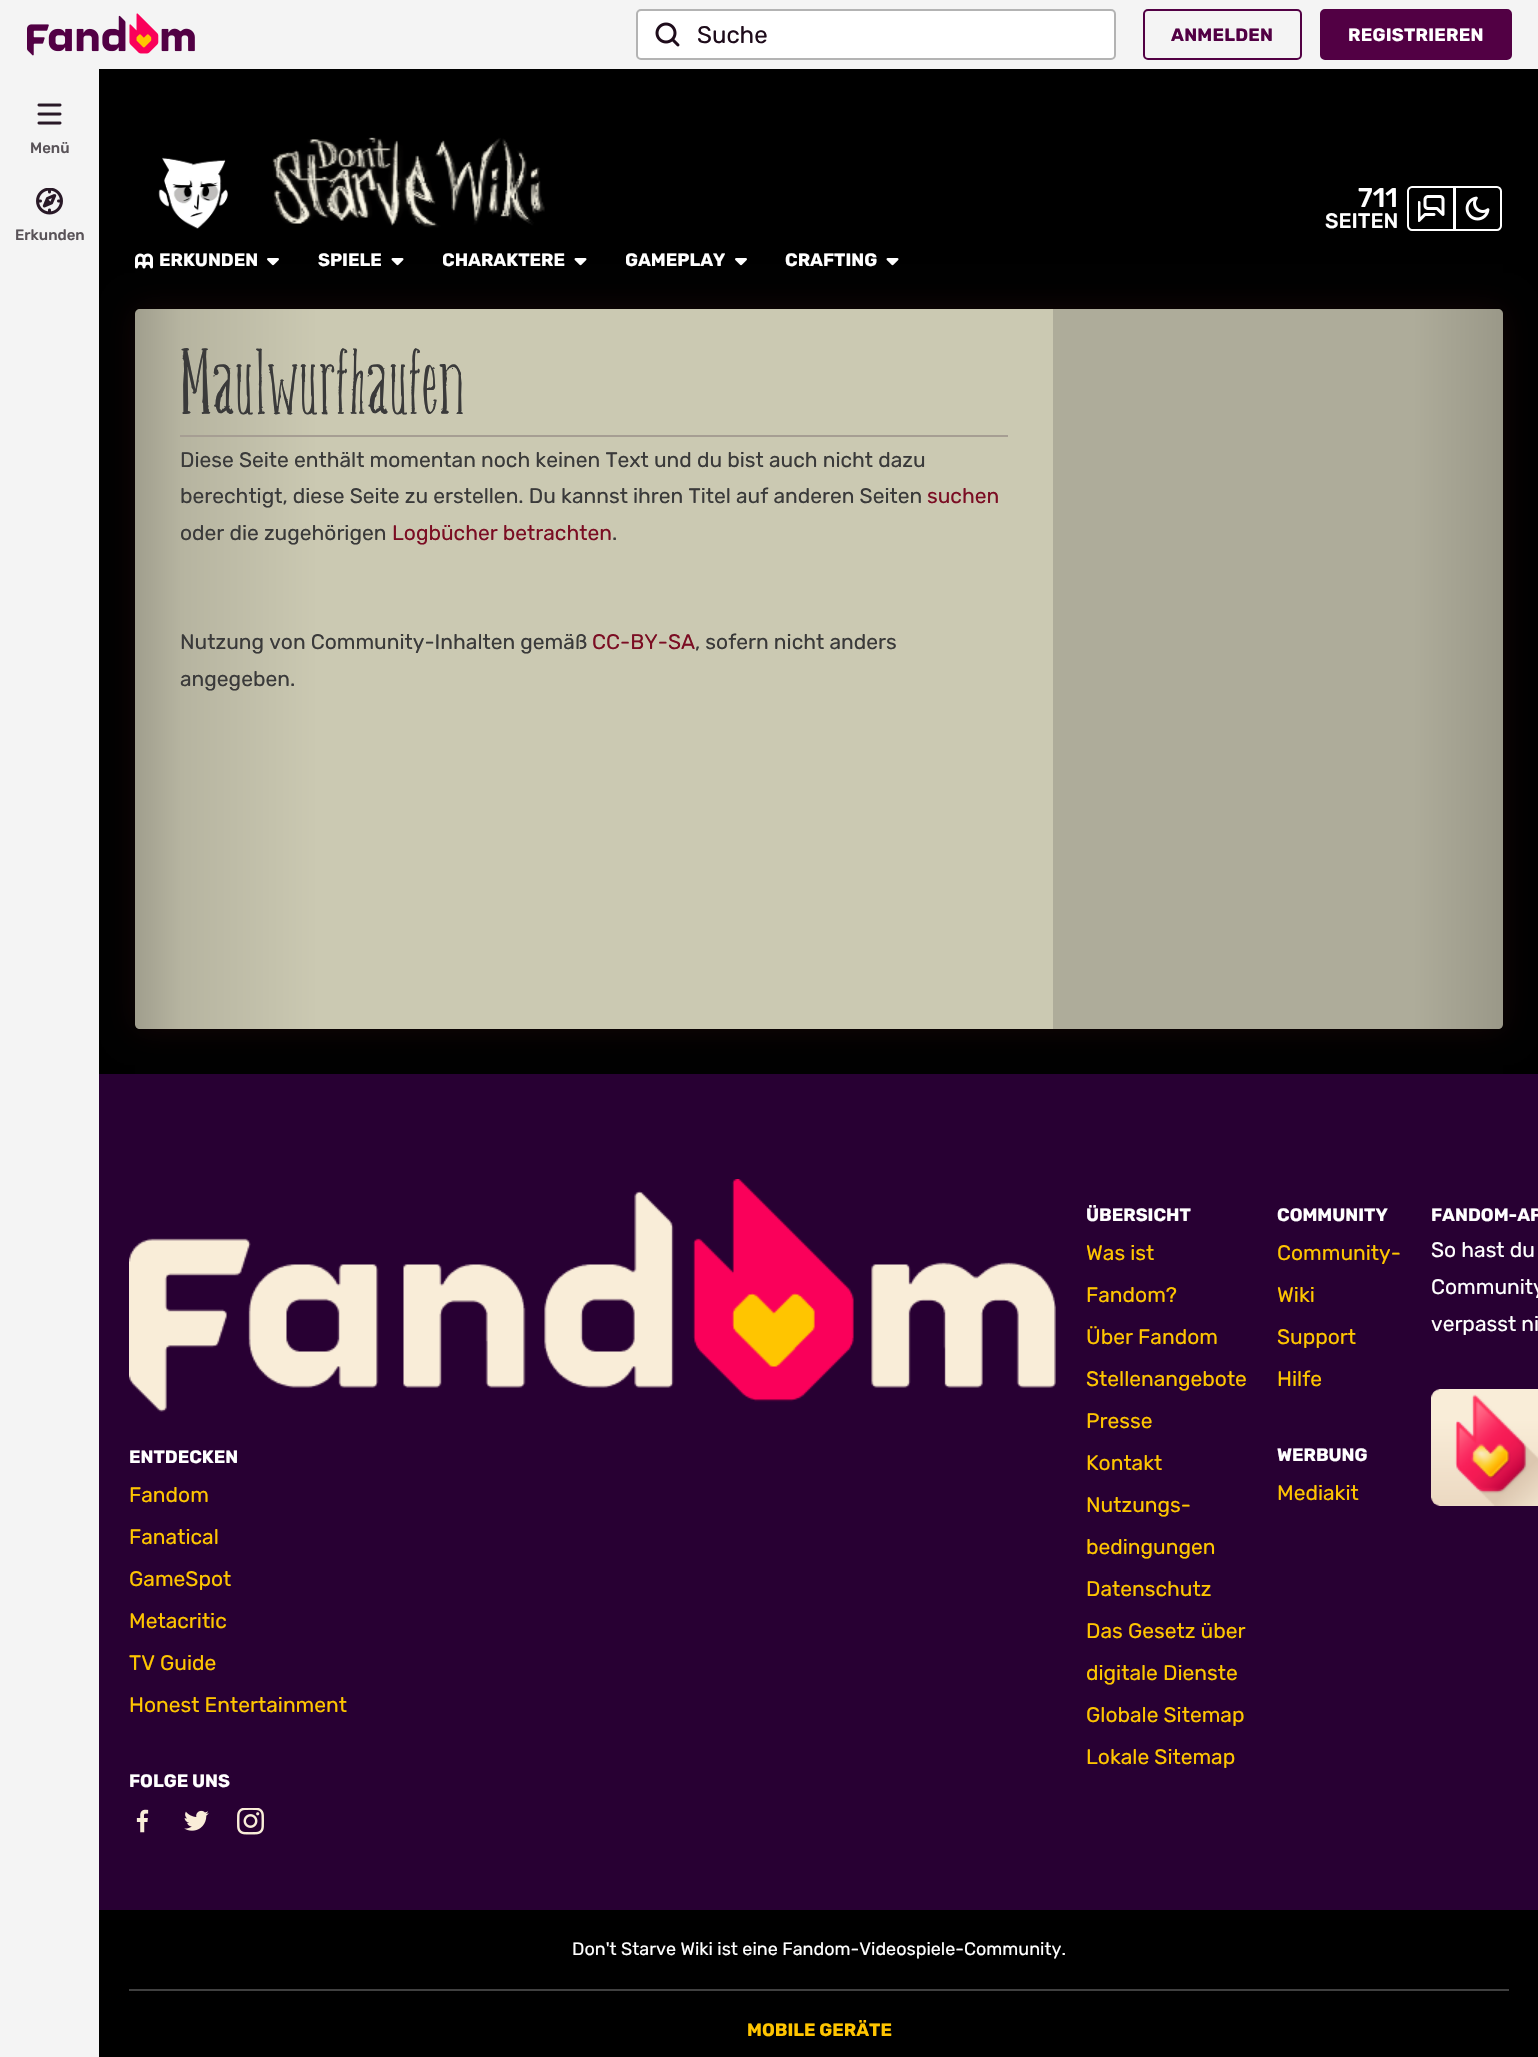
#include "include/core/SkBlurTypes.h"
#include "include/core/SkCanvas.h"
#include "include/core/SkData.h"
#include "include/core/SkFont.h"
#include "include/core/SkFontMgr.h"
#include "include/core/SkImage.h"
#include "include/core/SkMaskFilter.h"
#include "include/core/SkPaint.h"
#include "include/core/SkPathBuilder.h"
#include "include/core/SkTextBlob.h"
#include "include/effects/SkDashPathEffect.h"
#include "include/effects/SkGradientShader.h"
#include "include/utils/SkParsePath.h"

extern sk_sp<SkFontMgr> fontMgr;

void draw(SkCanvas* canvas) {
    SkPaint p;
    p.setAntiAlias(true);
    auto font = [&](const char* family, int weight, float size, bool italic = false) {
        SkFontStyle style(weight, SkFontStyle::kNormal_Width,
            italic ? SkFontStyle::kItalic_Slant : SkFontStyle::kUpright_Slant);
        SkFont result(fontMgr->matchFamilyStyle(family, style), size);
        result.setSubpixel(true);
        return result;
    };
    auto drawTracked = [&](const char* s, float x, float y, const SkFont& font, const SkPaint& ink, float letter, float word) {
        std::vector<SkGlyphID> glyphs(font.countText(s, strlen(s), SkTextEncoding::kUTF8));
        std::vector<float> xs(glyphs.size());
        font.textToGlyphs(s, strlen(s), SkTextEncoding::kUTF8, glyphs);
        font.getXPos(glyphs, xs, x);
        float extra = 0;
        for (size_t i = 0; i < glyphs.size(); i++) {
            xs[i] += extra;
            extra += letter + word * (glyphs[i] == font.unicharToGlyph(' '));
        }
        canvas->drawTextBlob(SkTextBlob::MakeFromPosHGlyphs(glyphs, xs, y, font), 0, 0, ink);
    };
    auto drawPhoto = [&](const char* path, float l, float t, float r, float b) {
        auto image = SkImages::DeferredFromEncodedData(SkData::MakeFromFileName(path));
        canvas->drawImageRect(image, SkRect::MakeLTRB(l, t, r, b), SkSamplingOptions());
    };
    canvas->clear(0xFF000000);
    p.setColor(0xFFF4F4F4);
    canvas->drawRect(SkRect::MakeLTRB(0, 0, 1538, 69), p);
    drawPhoto("media/1.png", 27, 13, 195, 56);
    p.setColor(0xFFFFFFFF);
    canvas->drawRoundRect(SkRect::MakeLTRB(637, 10, 1115, 59), 4, 4, p);
    p.setStyle(SkPaint::kStroke_Style);
    p.setStrokeWidth(2);
    p.setColor(0xFFB3B3B3);
    canvas->drawRoundRect(SkRect::MakeLTRB(637, 10, 1115, 59), 4, 4, p);
    drawPhoto("media/2.png", 655, 22, 680, 47);
    auto font1 = font("Rubik", 400, 24);
    p.setStyle(SkPaint::kFill_Style);
    p.setColor(0xFF1E0C1B);
    canvas->drawString("Suche", 697, 43, font1, p);
    p.setStyle(SkPaint::kStroke_Style);
    p.setColor(0xFF520044);
    canvas->drawRoundRect(SkRect::MakeLTRB(1144, 10, 1301, 59), 4, 4, p);
    auto font2 = font("Rubik", 700, 18);
    p.setStyle(SkPaint::kFill_Style);
    drawTracked("ANMELDEN", 1171, 41, font2, p, 0.25f, 0);
    canvas->drawRoundRect(SkRect::MakeLTRB(1321, 10, 1511, 59), 4, 4, p);
    p.setStyle(SkPaint::kStroke_Style);
    canvas->drawRoundRect(SkRect::MakeLTRB(1321, 10, 1511, 59), 4, 4, p);
    p.setStyle(SkPaint::kFill_Style);
    p.setColor(0xFFFFFFFF);
    drawTracked("REGISTRIEREN", 1348, 41, font2, p, 0.25f, 0);
    drawPhoto("media/9.png", 135, 253, 153, 269);
    drawPhoto("media/10.png", 267, 258, 279, 266);
    drawPhoto("media/11.png", 391, 258, 404, 266);
    drawPhoto("media/11.png", 574, 258, 587, 266);
    drawPhoto("media/10.png", 735, 258, 747, 266);
    drawPhoto("media/11.png", 886, 258, 899, 266);
    p.setColor(0xFF280033);
    canvas->drawRect(SkRect::MakeLTRB(99, 1074, 1538, 1910), p);
    p.setColor(0x8028090C);
    p.setMaskFilter(SkMaskFilter::MakeBlur(kNormal_SkBlurStyle, 15));
    canvas->drawRect(SkRect::MakeLTRB(135, 309, 1503, 1029), p);
    p.setMaskFilter(nullptr);
    p.setColor(0xFFF4F4F4);
    canvas->drawRect(SkRect::MakeLTRB(0, 69, 99, 2057), p);
    drawPhoto("media/3.png", 37, 103, 62, 125);
    auto font3 = font("Rubik", 500, 15);
    p.setColor(0xFF595358);
    canvas->drawString("Menü", 30, 153, font3, p);
    drawPhoto("media/4.png", 36, 188, 63, 215);
    canvas->drawString("Erkunden", 15, 240, font3, p);
    drawPhoto("media/5.png", 158, 157, 228, 229);
    drawPhoto("media/6.png", 272, 137, 545, 228);
    auto font4 = font("Rubik", 500, 27);
    p.setColor(0xFFFFFFFF);
    canvas->drawString("711", 1358, 207, font4, p);
    auto font5 = font("Rubik", 500, 21);
    canvas->drawString("SEITEN", 1325, 228, font5, p);
    p.setStyle(SkPaint::kStroke_Style);
    canvas->drawPath(SkPathBuilder().moveTo(1412, 187).lineTo(1454, 187).lineTo(1454, 230).lineTo(1412, 230).cubicTo(1410, 230, 1408, 228, 1408, 226).lineTo(1408, 191).cubicTo(1408, 189, 1410, 187, 1412, 187).close().detach(), p);
    drawPhoto("media/7.png", 1418, 195, 1445, 222);
    canvas->drawPath(SkPathBuilder().moveTo(1455, 187).lineTo(1497, 187).cubicTo(1499, 187, 1501, 189, 1501, 191).lineTo(1501, 226).cubicTo(1501, 228, 1499, 230, 1497, 230).lineTo(1455, 230).close().detach(), p);
    drawPhoto("media/8.png", 1465, 196, 1490, 221);
    p.setStyle(SkPaint::kFill_Style);
    canvas->drawString("ERKUNDEN", 159, 266, font2, p);
    canvas->drawString("SPIELE", 318, 266, font2, p);
    canvas->save();
    canvas->clipRect(SkRect::MakeLTRB(443, 251, 566, 273));
    canvas->drawString("CHARAKTERE", 442, 266, font2, p);
    canvas->restore();
    canvas->save();
    canvas->clipRect(SkRect::MakeLTRB(626, 251, 726, 273));
    canvas->drawString("GAMEPLAY", 625, 266, font2, p);
    canvas->restore();
    canvas->drawString("CRAFTING", 785, 266, font2, p);
    {
        const SkColor colors[] = {0xFFA09E8D, 0xFFB6B4A0, 0xFFCBC9B2};
        const float stops[] = {0, 0.05f, 0.2f};
        const SkPoint ends[] = {{135, 669}, {1053, 669}};
        p.setShader(SkGradientShader::MakeLinear(ends, colors, stops, 3, SkTileMode::kClamp));
        p.setAlpha(255);
    }
    canvas->drawPath(SkPathBuilder().moveTo(140, 309).lineTo(1053, 309).lineTo(1053, 1029).lineTo(140, 1029).cubicTo(137, 1029, 135, 1027, 135, 1024).lineTo(135, 314).cubicTo(135, 311, 137, 309, 140, 309).close().detach(), p);
    p.setShader(nullptr);
    p.setColor(0xFFA69E93);
    canvas->drawRect(SkRect::MakeLTRB(180, 435, 1008, 437), p);
    auto font6 = font("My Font", 400, 72);
    p.setColor(0xFF3A3A3A);
    drawTracked("Maulwurfhaufen", 180, 414, font6, p, 0.4f, 0);
    auto font7 = font("Rubik", 400, 21);
    canvas->drawString("Diese Seite enthält momentan noch keinen Text und du bist auch nicht dazu", 180, 467, font7, p);
    canvas->drawString("berechtigt, diese Seite zu erstellen. Du kannst ihren Titel auf anderen Seiten", 180, 503, font7, p);
    p.setColor(0xFF7B0D23);
    canvas->drawString("suchen", 927, 503, font7, p);
    p.setColor(0xFF3A3A3A);
    canvas->drawString("oder die zugehörigen", 180, 540, font7, p);
    p.setColor(0xFF7B0D23);
    canvas->drawString("Logbücher betrachten", 392, 540, font7, p);
    p.setColor(0xFF3A3A3A);
    canvas->drawString(".", 612, 540, font7, p);
    canvas->drawString("Nutzung von Community-Inhalten gemäß", 180, 649, font7, p);
    p.setColor(0xFF7B0D23);
    canvas->drawString("CC-BY-SA", 592, 649, font7, p);
    p.setColor(0xFF3A3A3A);
    canvas->drawString(", sofern nicht anders", 695, 649, font7, p);
    canvas->drawString("angegeben.", 180, 686, font7, p);
    {
        const SkColor colors[] = {0xFF9A9888, 0xFFAEAC9A};
        const float stops[] = {0, 0.2f};
        const SkPoint ends[] = {{1503, 669}, {1053, 669}};
        p.setShader(SkGradientShader::MakeLinear(ends, colors, stops, 2, SkTileMode::kClamp));
        p.setAlpha(255);
    }
    canvas->drawPath(SkPathBuilder().moveTo(1053, 309).lineTo(1498, 309).cubicTo(1501, 309, 1503, 311, 1503, 314).lineTo(1503, 1024).cubicTo(1503, 1027, 1501, 1029, 1498, 1029).lineTo(1053, 1029).close().detach(), p);
    p.setShader(nullptr);
    p.setColor(0xFFFFFFFF);
    canvas->drawString("ÜBERSICHT", 1086, 1221, font2, p);
    p.setColor(0xFFFFC500);
    {
        const struct { const char* s; float x, y; } items[] = {
            {"Was ist", 1086, 1260},
            {"Fandom?", 1086, 1302},
            {"Über Fandom", 1086, 1344},
            {"Stellenangebote", 1086, 1386},
            {"Presse", 1086, 1428},
            {"Kontakt", 1086, 1470},
            {"Nutzungs-", 1086, 1512},
            {"bedingungen", 1086, 1554},
            {"Datenschutz", 1086, 1596},
            {"Das Gesetz über", 1086, 1638},
            {"digitale Dienste", 1086, 1680},
            {"Globale Sitemap", 1086, 1722},
            {"Lokale Sitemap", 1086, 1764},
        };
        for (auto [s, x, y] : items) {
            canvas->drawString(s, x, y, font7, p);
        }
    }
    p.setColor(0xFFFFFFFF);
    canvas->drawString("COMMUNITY", 1277, 1221, font2, p);
    p.setColor(0xFFFFC500);
    {
        const struct { const char* s; float x, y; } items[] = {
            {"Community-", 1277, 1260},
            {"Wiki", 1277, 1302},
            {"Support", 1277, 1344},
            {"Hilfe", 1277, 1386},
        };
        for (auto [s, x, y] : items) {
            canvas->drawString(s, x, y, font7, p);
        }
    }
    p.setColor(0xFFFFFFFF);
    canvas->drawString("WERBUNG", 1277, 1461, font2, p);
    p.setColor(0xFFFFC500);
    canvas->drawString("Mediakit", 1277, 1500, font7, p);
    p.setColor(0xFFFFFFFF);
    canvas->drawString("FANDOM-AP", 1431, 1221, font2, p);
    {
        const struct { const char* s; float x, y; } items[] = {
            {"So hast du", 1431, 1257},
            {"Community", 1431, 1294},
            {"verpasst ni", 1431, 1331},
        };
        for (auto [s, x, y] : items) {
            canvas->drawString(s, x, y, font7, p);
        }
    }
    drawPhoto("media/12.png", 1431, 1389, 1538, 1506);
    drawPhoto("media/13.png", 129, 1179, 1056, 1412);
    canvas->drawString("ENTDECKEN", 129, 1463, font2, p);
    p.setColor(0xFFFFC500);
    {
        const struct { const char* s; float x, y; } items[] = {
            {"Fandom", 129, 1502},
            {"Fanatical", 129, 1544},
            {"GameSpot", 129, 1586},
            {"Metacritic", 129, 1628},
            {"TV Guide", 129, 1670},
            {"Honest Entertainment", 129, 1712},
        };
        for (auto [s, x, y] : items) {
            canvas->drawString(s, x, y, font7, p);
        }
    }
    p.setColor(0xFFFFFFFF);
    canvas->drawString("FOLGE UNS", 129, 1787, font2, p);
    drawPhoto("media/14.png", 136, 1809, 149, 1833);
    drawPhoto("media/15.png", 184, 1810, 209, 1831);
    drawPhoto("media/16.png", 237, 1808, 264, 1835);
    auto font8 = font("Rubik", 400, 18);
    canvas->drawString("Don't Starve Wiki ist eine Fandom-Videospiele-Community.", 572, 1955, font8, p);
    p.setColor(0xFF404040);
    canvas->drawRect(SkRect::MakeLTRB(129, 1989, 1509, 1991), p);
    p.setColor(0xFFFFC500);
    canvas->drawString("MOBILE GERÄTE", 747, 2036, font2, p);
}
